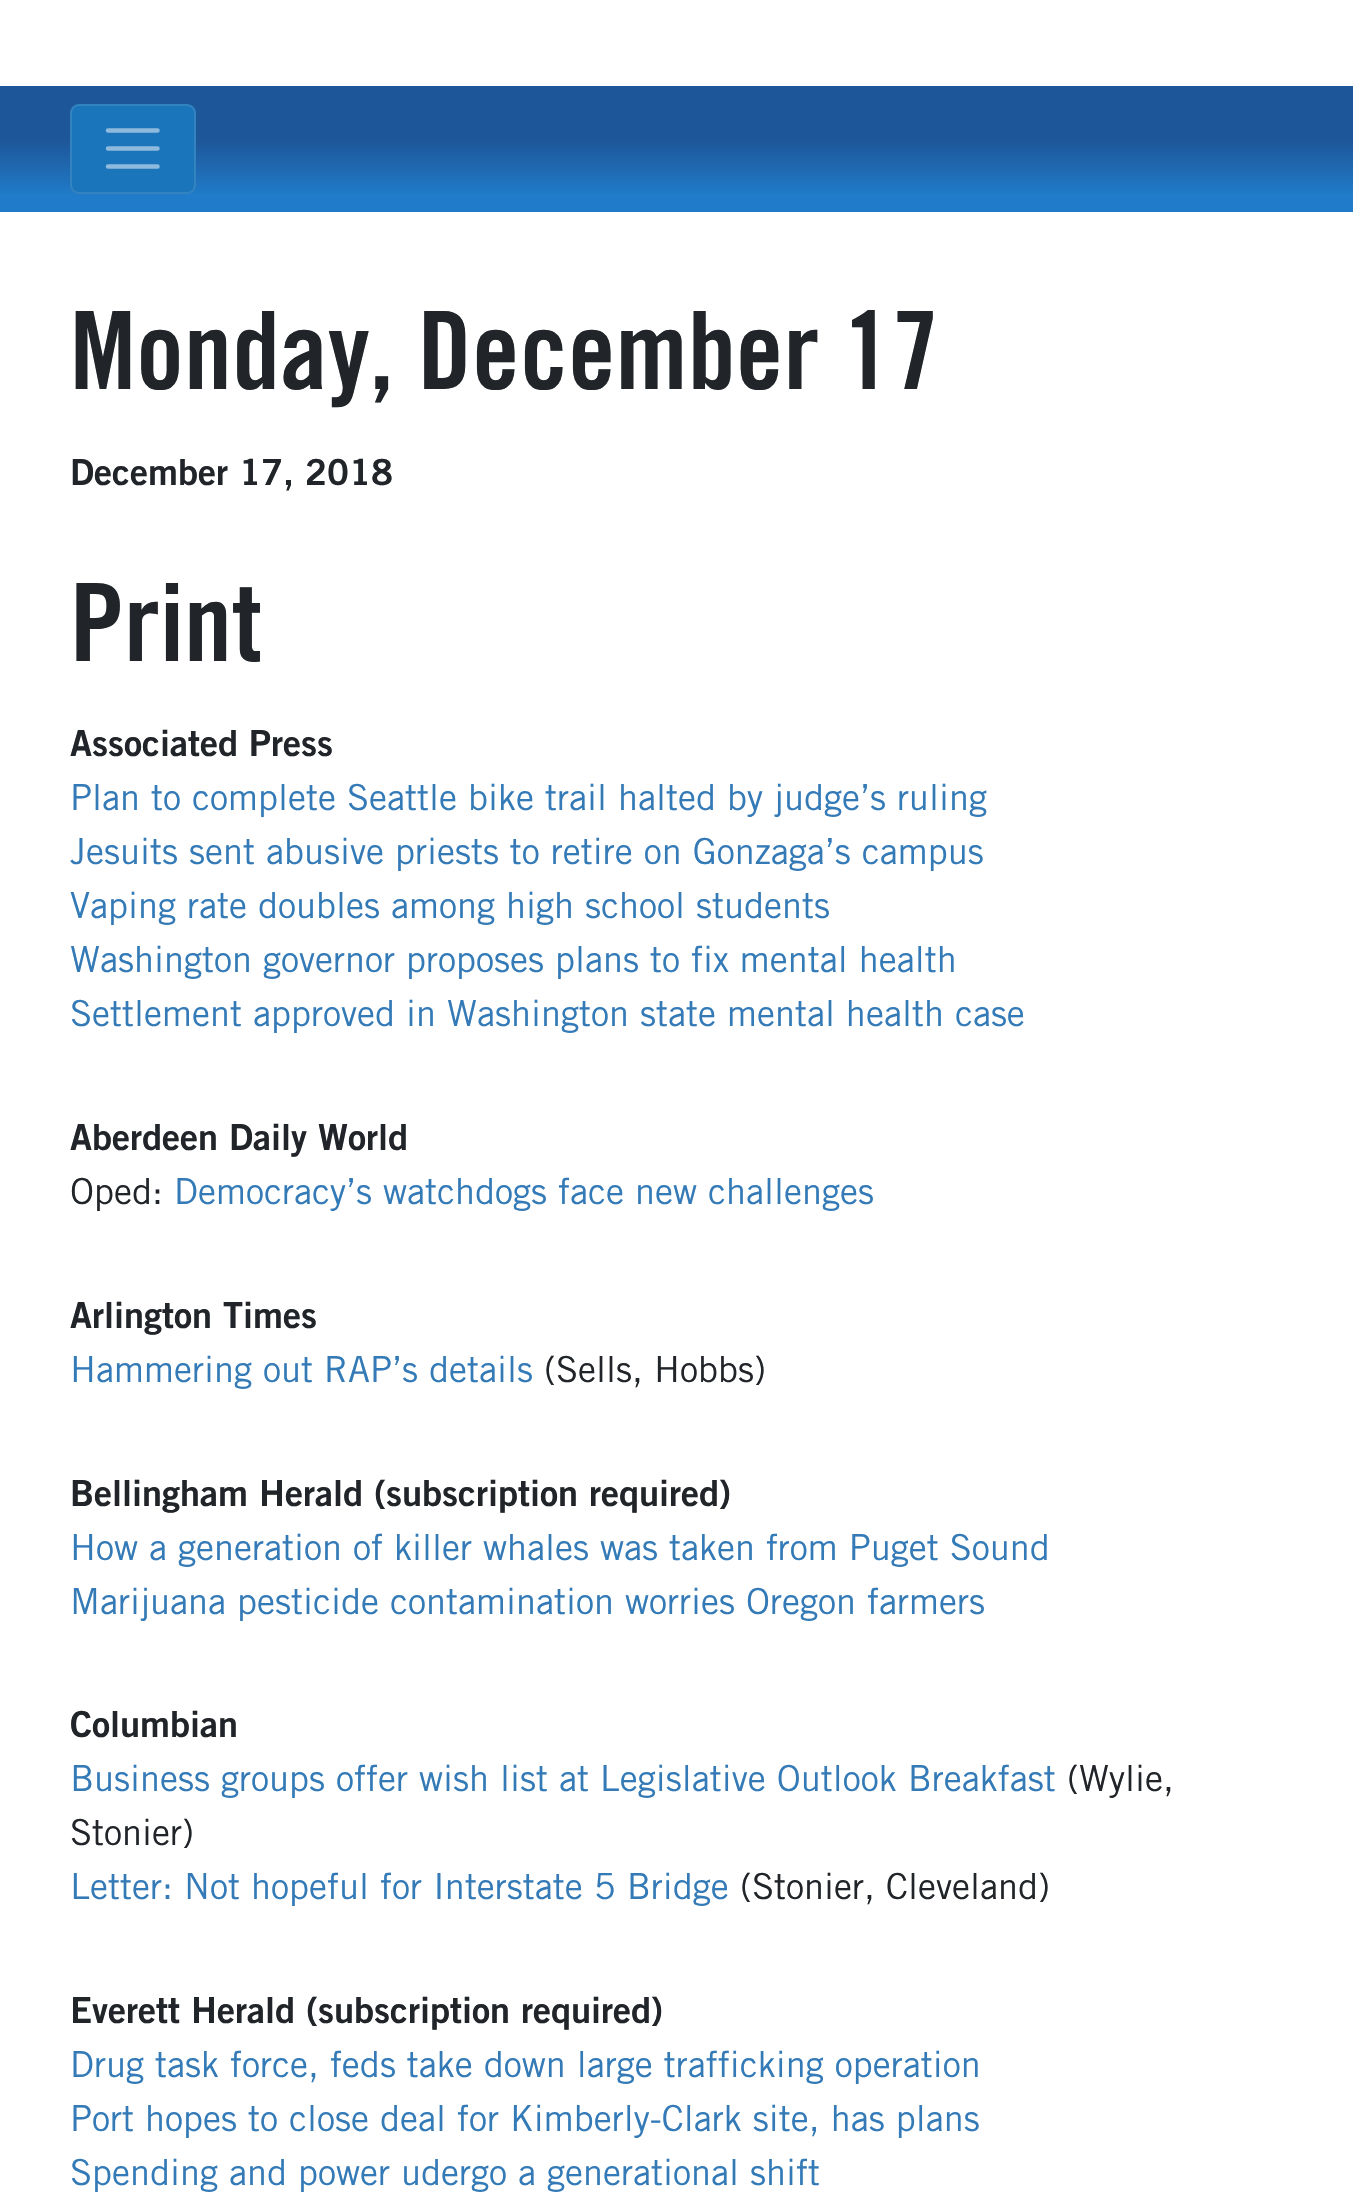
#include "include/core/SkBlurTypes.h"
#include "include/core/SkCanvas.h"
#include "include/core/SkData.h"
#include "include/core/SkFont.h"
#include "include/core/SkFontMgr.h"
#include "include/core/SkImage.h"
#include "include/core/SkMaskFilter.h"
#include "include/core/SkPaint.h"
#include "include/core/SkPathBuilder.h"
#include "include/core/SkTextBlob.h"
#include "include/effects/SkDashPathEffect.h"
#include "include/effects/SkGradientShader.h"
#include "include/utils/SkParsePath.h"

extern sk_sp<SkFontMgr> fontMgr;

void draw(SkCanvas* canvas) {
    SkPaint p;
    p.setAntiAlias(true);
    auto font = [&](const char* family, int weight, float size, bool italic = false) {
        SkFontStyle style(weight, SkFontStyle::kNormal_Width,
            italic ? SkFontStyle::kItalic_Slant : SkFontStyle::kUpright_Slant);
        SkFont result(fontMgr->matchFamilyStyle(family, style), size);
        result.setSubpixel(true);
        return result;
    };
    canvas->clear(0xFFFFFFFF);
    {
        const SkColor colors[] = {0xFF1E5799, 0xFF207CCA};
        const float stops[] = {0.44f, 0.88f};
        const SkPoint ends[] = {{677, 85}, {677, 212}};
        p.setShader(SkGradientShader::MakeLinear(ends, colors, stops, 2, SkTileMode::kClamp));
        p.setAlpha(255);
    }
    canvas->drawRect(SkRect::MakeLTRB(0, 86, 1353, 212), p);
    p.setShader(nullptr);
    p.setColor(0xFF1B75BA);
    canvas->drawRoundRect(SkRect::MakeLTRB(70, 104, 196, 194), 9, 9, p);
    p.setStyle(SkPaint::kStroke_Style);
    p.setStrokeWidth(2);
    p.setColor(0x1AFFFFFF);
    canvas->drawRoundRect(SkRect::MakeLTRB(71, 105, 195, 193), 8, 8, p);
    p.setStrokeWidth(4.5f);
    p.setStrokeCap(SkPaint::kRound_Cap);
    p.setColor(0xFF8DBADD);
    canvas->drawPath(SkPathBuilder().moveTo(108, 130.5f).lineTo(157.5f, 130.5f).moveTo(108, 148.5f).lineTo(157.5f, 148.5f).moveTo(108, 166.5f).lineTo(157.5f, 166.5f).detach(), p);
    auto font1 = font("Trade Gothic", 700, 108);
    p.setStyle(SkPaint::kFill_Style);
    p.setColor(0xFF212529);
    canvas->drawString("Monday, December 17", 70, 389, font1, p);
    auto font2 = font("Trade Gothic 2", 700, 36);
    canvas->drawString("December 17, 2018", 70, 485, font2, p);
    canvas->drawString("Print", 70, 661, font1, p);
    canvas->drawString("Associated Press", 70, 756, font2, p);
    auto font3 = font("Trade Gothic", 400, 36);
    p.setColor(0xFF337AB7);
    {
        const struct { const char* s; float x, y; } items[] = {
            {"Plan to complete Seattle bike trail halted by judge’s ruling", 70, 810},
            {"Jesuits sent abusive priests to retire on Gonzaga’s campus", 70, 864},
            {"Vaping rate doubles among high school students", 70, 918},
            {"Washington governor proposes plans to fix mental health", 70, 972},
            {"Settlement approved in Washington state mental health case", 70, 1026},
        };
        for (auto [s, x, y] : items) {
            canvas->drawString(s, x, y, font3, p);
        }
    }
    p.setColor(0xFF212529);
    canvas->drawString("Aberdeen Daily World", 70, 1150, font2, p);
    canvas->drawString("Oped:", 70, 1204, font3, p);
    p.setColor(0xFF337AB7);
    canvas->drawString("Democracy’s watchdogs face new challenges", 174, 1204, font3, p);
    p.setColor(0xFF212529);
    canvas->drawString("Arlington Times", 70, 1328, font2, p);
    p.setColor(0xFF337AB7);
    canvas->drawString("Hammering out RAP’s details", 70, 1382, font3, p);
    p.setColor(0xFF212529);
    canvas->drawString("(Sells, Hobbs)", 544, 1382, font3, p);
    canvas->drawString("Bellingham Herald (subscription required)", 70, 1506, font2, p);
    p.setColor(0xFF337AB7);
    canvas->drawString("How a generation of killer whales was taken from Puget Sound", 70, 1560, font3, p);
    canvas->drawString("Marijuana pesticide contamination worries Oregon farmers", 70, 1614, font3, p);
    p.setColor(0xFF212529);
    canvas->drawString("Columbian", 70, 1737, font2, p);
    p.setColor(0xFF337AB7);
    canvas->drawString("Business groups offer wish list at Legislative Outlook Breakfast", 70, 1791, font3, p);
    p.setColor(0xFF212529);
    canvas->drawString("(Wylie,", 1067, 1791, font3, p);
    canvas->drawString("Stonier)", 70, 1845, font3, p);
    p.setColor(0xFF337AB7);
    canvas->drawString("Letter: Not hopeful for Interstate 5 Bridge", 70, 1899, font3, p);
    p.setColor(0xFF212529);
    canvas->drawString("(Stonier, Cleveland)", 740, 1899, font3, p);
    canvas->drawString("Everett Herald (subscription required)", 70, 2023, font2, p);
    p.setColor(0xFF337AB7);
    {
        const struct { const char* s; float x, y; } items[] = {
            {"Drug task force, feds take down large trafficking operation", 70, 2077},
            {"Port hopes to close deal for Kimberly-Clark site, has plans", 70, 2131},
            {"Spending and power udergo a generational shift", 70, 2185},
        };
        for (auto [s, x, y] : items) {
            canvas->drawString(s, x, y, font3, p);
        }
    }
}
